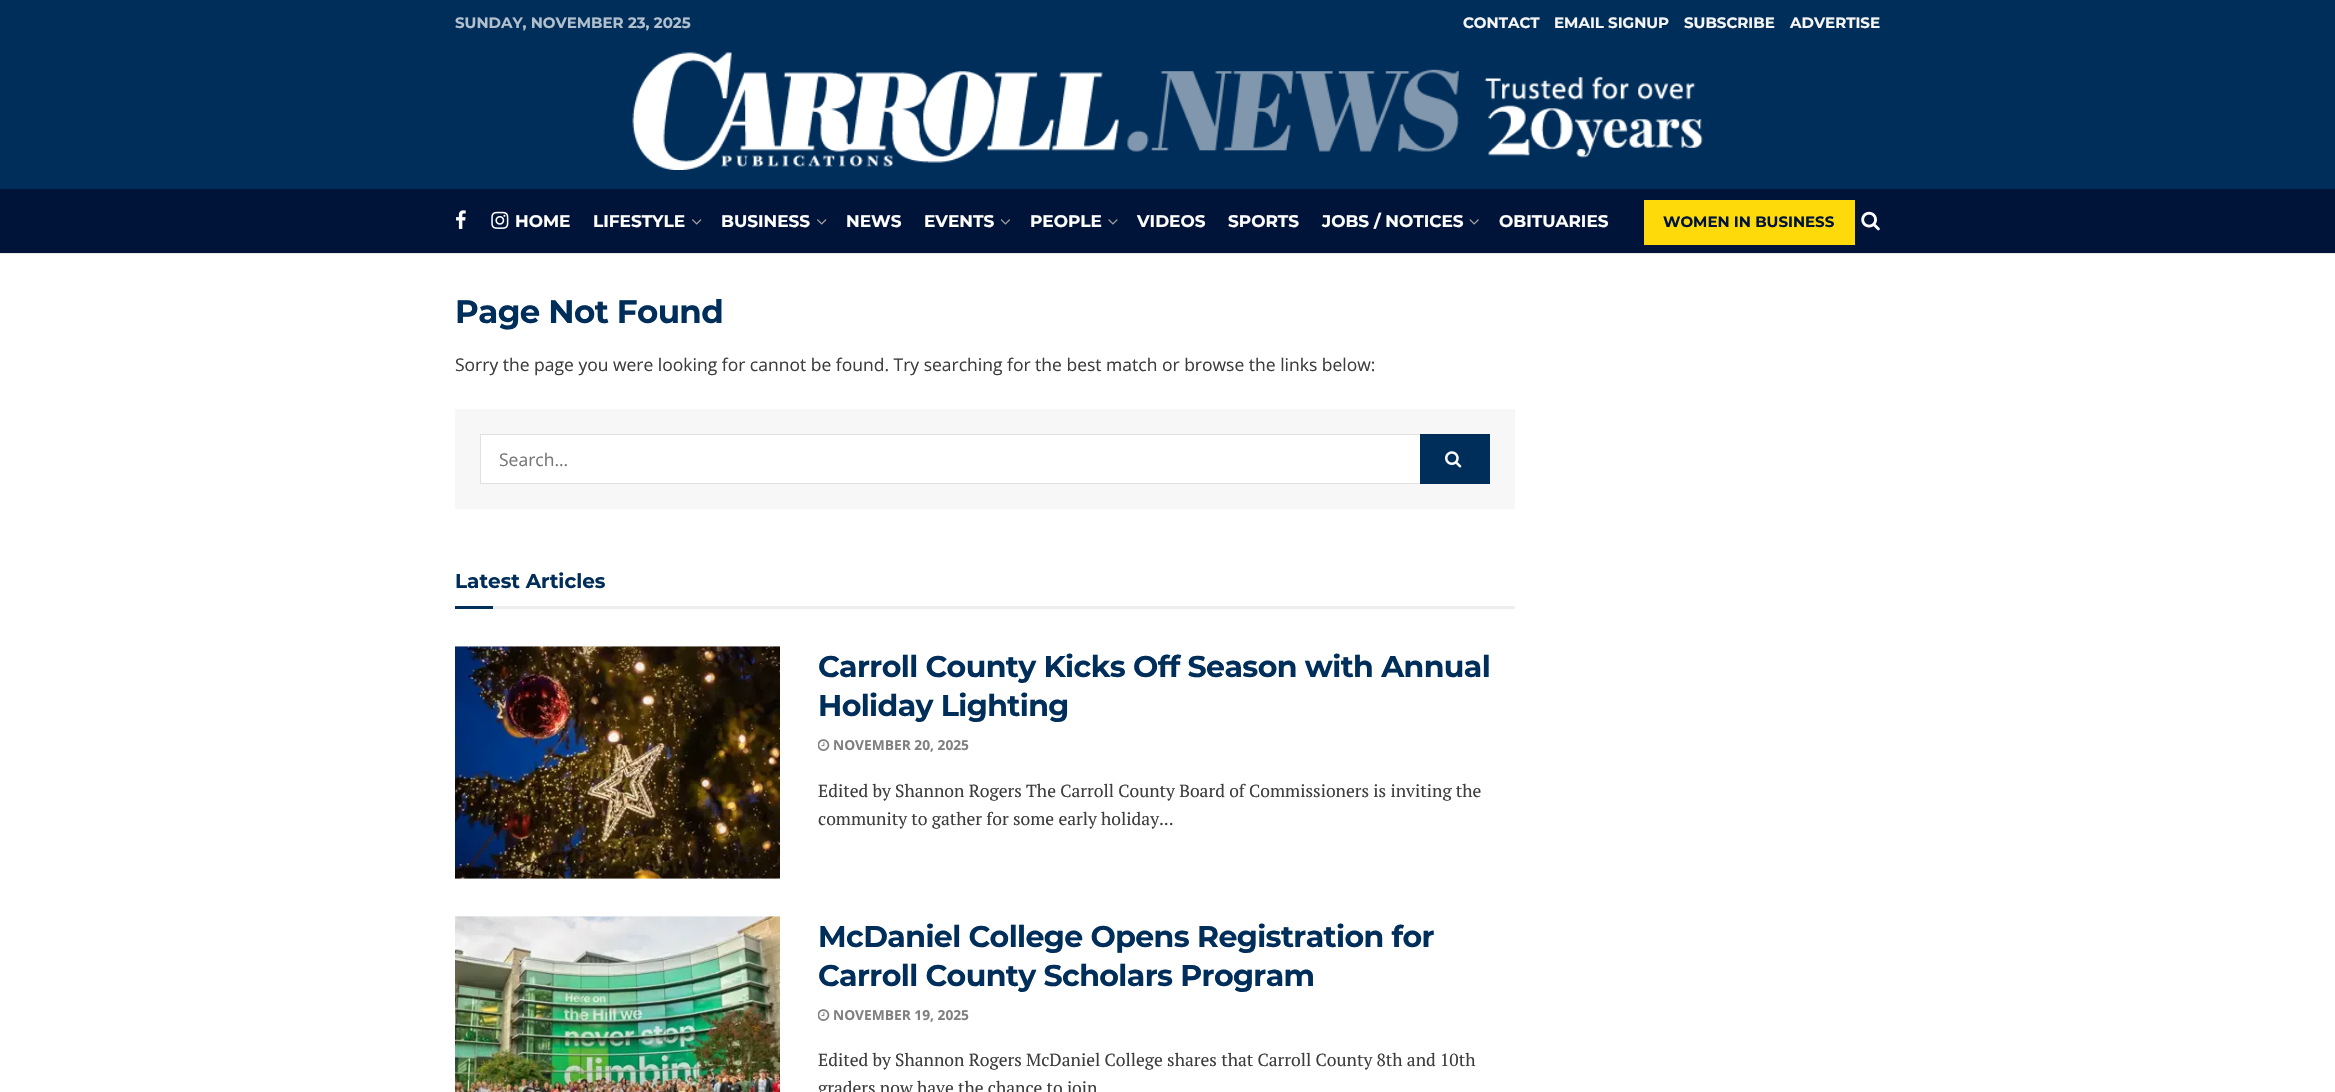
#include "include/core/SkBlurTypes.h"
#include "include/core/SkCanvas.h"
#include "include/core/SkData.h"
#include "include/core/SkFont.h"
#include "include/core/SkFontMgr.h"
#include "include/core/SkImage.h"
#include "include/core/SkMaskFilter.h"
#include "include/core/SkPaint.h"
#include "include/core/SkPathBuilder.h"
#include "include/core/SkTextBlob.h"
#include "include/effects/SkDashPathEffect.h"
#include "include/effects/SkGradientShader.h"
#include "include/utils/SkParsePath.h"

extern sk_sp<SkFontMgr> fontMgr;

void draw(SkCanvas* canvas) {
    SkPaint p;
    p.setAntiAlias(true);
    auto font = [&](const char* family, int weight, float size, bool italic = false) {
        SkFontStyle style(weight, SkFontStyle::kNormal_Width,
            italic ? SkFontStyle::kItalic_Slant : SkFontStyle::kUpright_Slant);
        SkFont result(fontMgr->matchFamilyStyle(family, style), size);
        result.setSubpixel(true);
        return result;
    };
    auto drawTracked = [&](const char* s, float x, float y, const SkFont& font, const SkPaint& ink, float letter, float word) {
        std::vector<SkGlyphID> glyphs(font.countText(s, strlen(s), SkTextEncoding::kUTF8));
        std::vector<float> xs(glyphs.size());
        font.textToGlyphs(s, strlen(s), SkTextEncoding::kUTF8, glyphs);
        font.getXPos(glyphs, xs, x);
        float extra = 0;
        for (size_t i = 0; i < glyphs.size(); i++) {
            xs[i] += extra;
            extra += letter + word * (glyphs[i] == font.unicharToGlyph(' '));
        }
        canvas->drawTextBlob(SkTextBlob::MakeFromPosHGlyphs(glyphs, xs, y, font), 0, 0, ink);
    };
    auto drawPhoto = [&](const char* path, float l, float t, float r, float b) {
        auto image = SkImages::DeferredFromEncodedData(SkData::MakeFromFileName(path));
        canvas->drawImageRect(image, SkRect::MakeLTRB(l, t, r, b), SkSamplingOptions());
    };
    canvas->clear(0xFFFFFFFF);
    p.setColor(0xFF002E5B);
    canvas->drawRect(SkRect::MakeLTRB(0, 0, 2335, 189), p);
    drawPhoto("media/1.png", 632, 52, 1703, 170);
    auto font1 = font("Montserrat", 700, 15);
    p.setColor(0xFFB2C0CD);
    canvas->drawString("SUNDAY, NOVEMBER 23, 2025", 455, 28, font1, p);
    p.setColor(0xFFF5F5F5);
    {
        const struct { const char* s; float x, y; } items[] = {
            {"CONTACT", 1463, 28},
            {"EMAIL SIGNUP", 1554, 28},
            {"SUBSCRIBE", 1684, 28},
            {"ADVERTISE", 1790, 28},
        };
        for (auto [s, x, y] : items) {
            canvas->drawString(s, x, y, font1, p);
        }
    }
    p.setColor(0xFF001338);
    canvas->drawRect(SkRect::MakeLTRB(0, 189, 2335, 253), p);
    p.setColor(0xFFE8E8E8);
    canvas->drawRect(SkRect::MakeLTRB(0, 253, 2335, 254), p);
    drawPhoto("media/2.png", 456, 210, 466, 229);
    drawPhoto("media/3.png", 491, 211, 509, 229);
    auto font2 = font("Montserrat", 700, 16.9f);
    p.setColor(0xFFFFFFFF);
    canvas->drawString("HOME", 515, 227, font2, p);
    canvas->drawString("LIFESTYLE", 593, 227, font2, p);
    drawPhoto("media/4.png", 692, 219, 702, 225);
    canvas->drawString("BUSINESS", 721, 227, font2, p);
    drawPhoto("media/4.png", 817, 219, 827, 225);
    canvas->drawString("NEWS", 846, 227, font2, p);
    canvas->drawString("EVENTS", 924, 227, font2, p);
    drawPhoto("media/5.png", 1000, 219, 1010, 225);
    canvas->drawString("PEOPLE", 1030, 227, font2, p);
    drawPhoto("media/6.png", 1108, 219, 1118, 225);
    {
        const struct { const char* s; float x, y; } items[] = {
            {"VIDEOS", 1137, 227},
            {"SPORTS", 1228, 227},
            {"JOBS / NOTICES", 1322, 227},
        };
        for (auto [s, x, y] : items) {
            canvas->drawString(s, x, y, font2, p);
        }
    }
    drawPhoto("media/7.png", 1469, 219, 1479, 225);
    canvas->drawString("OBITUARIES", 1499, 227, font2, p);
    p.setColor(0xFFFFDA0A);
    canvas->drawRect(SkRect::MakeLTRB(1644, 200, 1855, 245), p);
    p.setColor(0xFF001338);
    canvas->drawString("WOMEN IN BUSINESS", 1663, 227, font1, p);
    drawPhoto("media/8.png", 1861, 211, 1880, 231);
    auto font3 = font("Montserrat", 700, 32.5f);
    p.setColor(0xFF002E5B);
    drawTracked("Page Not Found", 455, 323, font3, p, -0.6f, 0);
    auto font4 = font("Open Sans", 400, 17.5f);
    p.setColor(0xFF3D3D3D);
    canvas->drawString("Sorry the page you were looking for cannot be found. Try searching for the best match or browse the links below:", 455, 371, font4, p);
    p.setColor(0xFFF7F7F7);
    canvas->drawRect(SkRect::MakeLTRB(455, 409, 1515, 509), p);
    p.setColor(0xFFFFFFFF);
    canvas->drawRect(SkRect::MakeLTRB(481, 435, 1420, 483), p);
    p.setStyle(SkPaint::kStroke_Style);
    p.setStrokeWidth(1);
    p.setColor(0xFFE0E0E0);
    canvas->drawRect(SkRect::MakeLTRB(480.5f, 434.5f, 1489.5f, 483.5f), p);
    p.setStyle(SkPaint::kFill_Style);
    p.setColor(0xFF757575);
    canvas->drawString("Search...", 499, 466, font4, p);
    p.setColor(0xFF002E5B);
    canvas->drawRect(SkRect::MakeLTRB(1420, 434, 1490, 484), p);
    drawPhoto("media/9.png", 1445, 451, 1462, 468);
    p.setColor(0xFFEEEEEE);
    canvas->drawRect(SkRect::MakeLTRB(493, 606, 1515, 609), p);
    auto font5 = font("Montserrat", 700, 20);
    p.setColor(0xFF002E5B);
    canvas->drawString("Latest Articles", 455, 588, font5, p);
    canvas->drawRect(SkRect::MakeLTRB(455, 606, 493, 609), p);
    p.setColor(0xFFF7F7F7);
    canvas->drawRect(SkRect::MakeLTRB(455, 646, 780, 879), p);
    drawPhoto("media/10.png", 455, 646, 780, 879);
    auto font6 = font("Montserrat", 700, 30);
    p.setColor(0xFF002E5B);
    drawTracked("Carroll County Kicks Off Season with Annual", 818, 677, font6, p, -0.6f, 0);
    drawTracked("Holiday Lighting", 818, 716, font6, p, -0.6f, 0);
    drawPhoto("media/11.png", 818, 739, 830, 751);
    auto font7 = font("Open Sans", 700, 13.75f);
    p.setColor(0xFF808080);
    canvas->drawString("NOVEMBER 20, 2025", 833, 750, font7, p);
    auto font8 = font("PT Serif", 400, 17.5f);
    p.setColor(0xFF3D3D3D);
    canvas->drawString("Edited by Shannon Rogers The Carroll County Board of Commissioners is inviting the", 818, 797, font8, p);
    canvas->drawString("community to gather for some early holiday...", 818, 825, font8, p);
    p.setColor(0xFFF7F7F7);
    canvas->drawRect(SkRect::MakeLTRB(455, 916, 780, 917), p);
    drawPhoto("media/12.png", 455, 916, 780, 1092);
    p.setColor(0xFF002E5B);
    drawTracked("McDaniel College Opens Registration for", 818, 947, font6, p, -0.6f, 0);
    drawTracked("Carroll County Scholars Program", 818, 986, font6, p, -0.6f, 0);
    drawPhoto("media/11.png", 818, 1009, 830, 1021);
    p.setColor(0xFF808080);
    canvas->drawString("NOVEMBER 19, 2025", 833, 1020, font7, p);
    p.setColor(0xFF3D3D3D);
    canvas->drawString("Edited by Shannon Rogers McDaniel College shares that Carroll County 8th and 10th", 818, 1066, font8, p);
    canvas->drawString("graders now have the chance to join", 818, 1094, font8, p);
}
